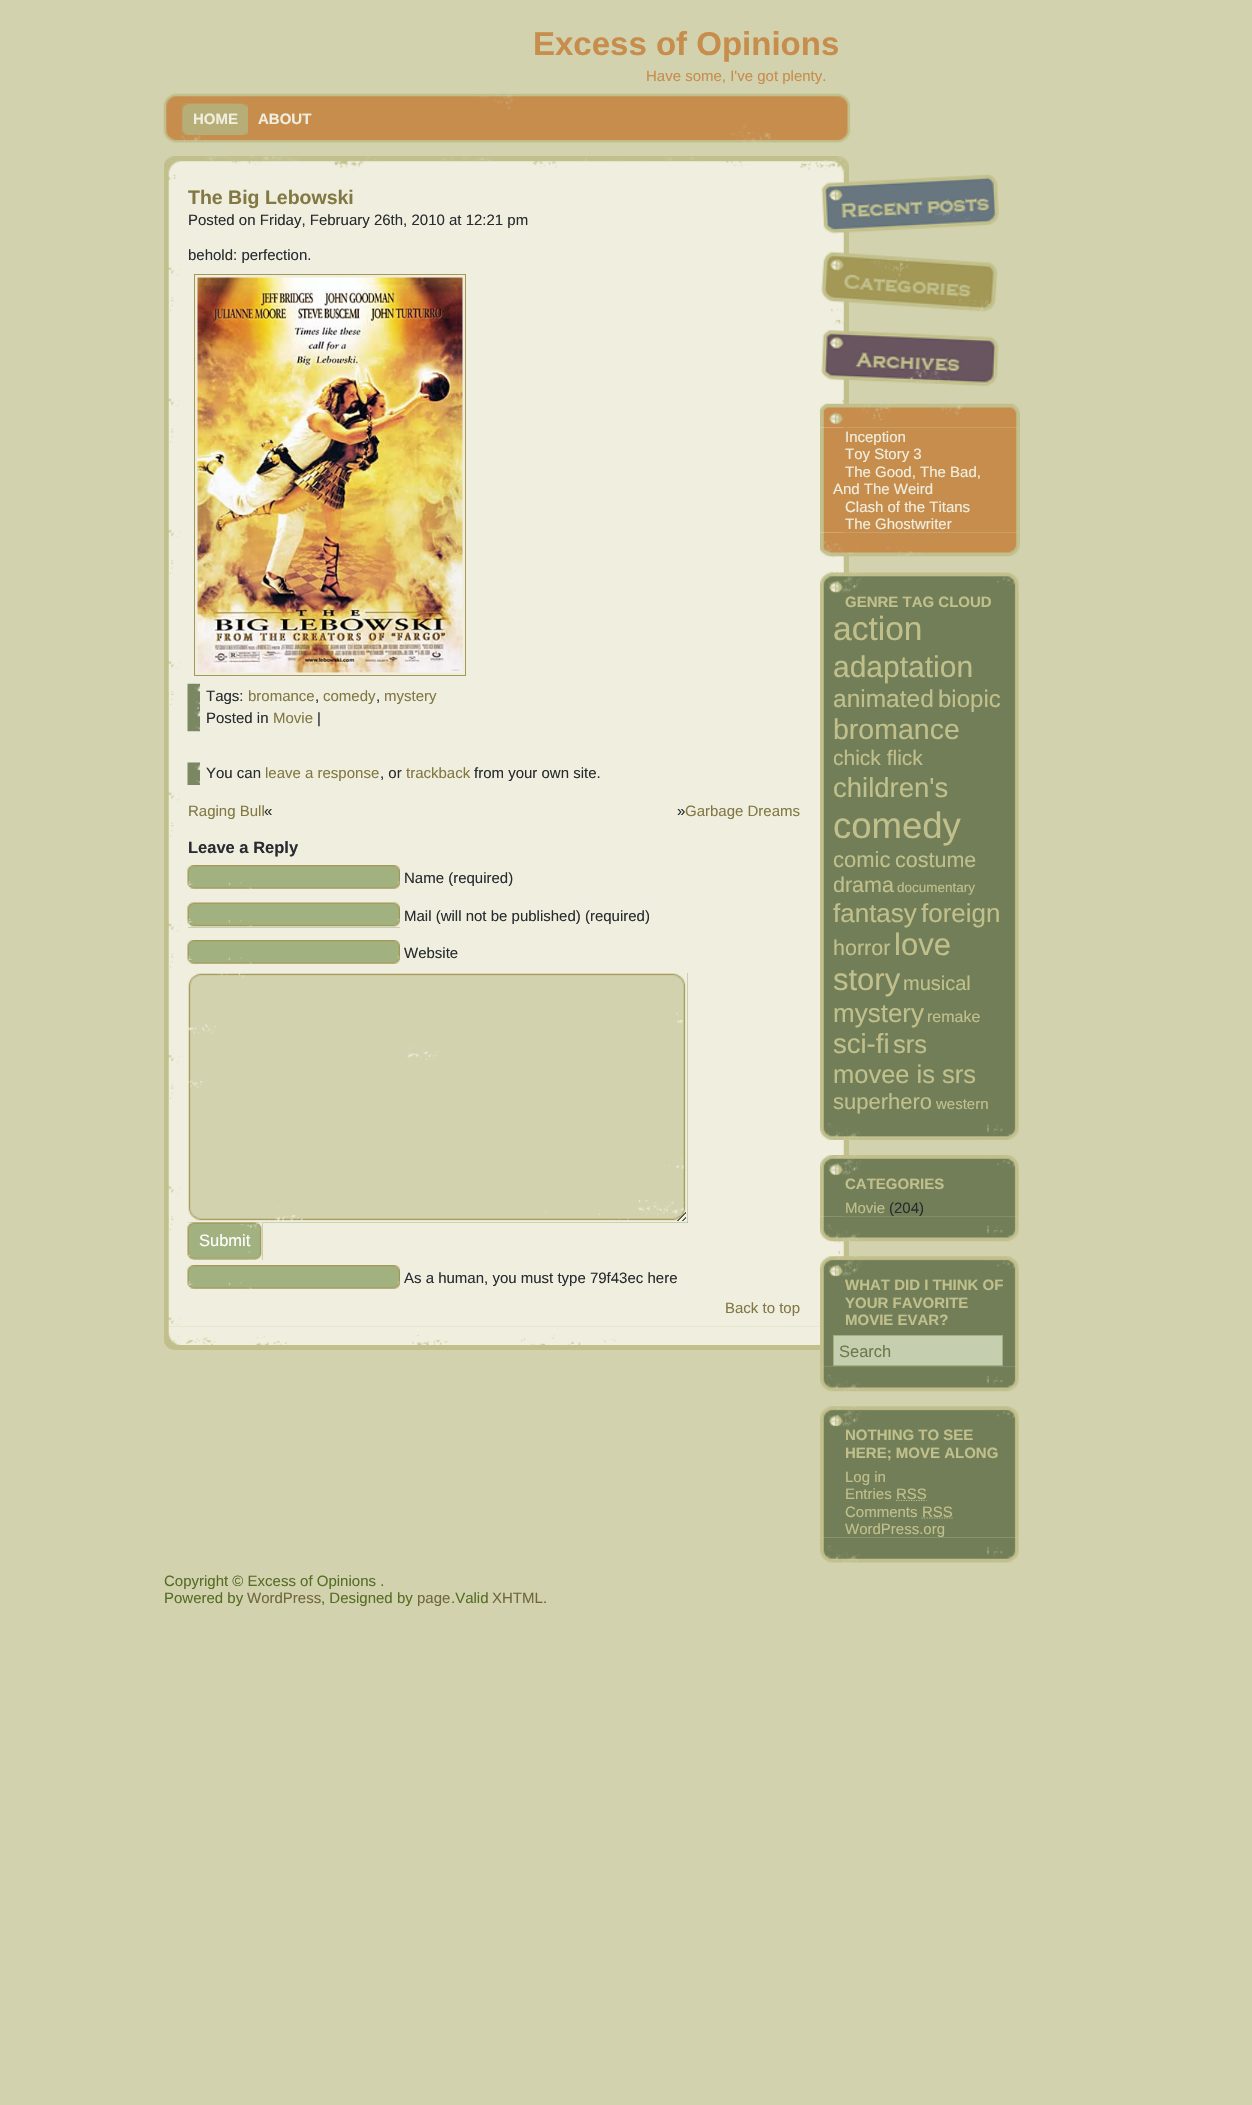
#include "include/core/SkBlurTypes.h"
#include "include/core/SkCanvas.h"
#include "include/core/SkData.h"
#include "include/core/SkFont.h"
#include "include/core/SkFontMgr.h"
#include "include/core/SkImage.h"
#include "include/core/SkMaskFilter.h"
#include "include/core/SkPaint.h"
#include "include/core/SkPathBuilder.h"
#include "include/core/SkTextBlob.h"
#include "include/effects/SkDashPathEffect.h"
#include "include/effects/SkGradientShader.h"
#include "include/utils/SkParsePath.h"

extern sk_sp<SkFontMgr> fontMgr;

void draw(SkCanvas* canvas) {
    SkPaint p;
    p.setAntiAlias(true);
    auto font = [&](const char* family, int weight, float size, bool italic = false) {
        SkFontStyle style(weight, SkFontStyle::kNormal_Width,
            italic ? SkFontStyle::kItalic_Slant : SkFontStyle::kUpright_Slant);
        SkFont result(fontMgr->matchFamilyStyle(family, style), size);
        result.setSubpixel(true);
        return result;
    };
    auto drawPhoto = [&](const char* path, float l, float t, float r, float b) {
        auto image = SkImages::DeferredFromEncodedData(SkData::MakeFromFileName(path));
        canvas->drawImageRect(image, SkRect::MakeLTRB(l, t, r, b), SkSamplingOptions());
    };
    canvas->clear(0xFFD3D2AE);
    auto font1 = font("Liberation Sans", 700, 33);
    p.setColor(0xFFC78D4D);
    canvas->drawString("Excess of Opinions", 533, 55, font1, p);
    auto font2 = font("Liberation Sans", 400, 15);
    canvas->drawString("Have some, I've got plenty.", 646, 81, font2, p);
    drawPhoto("media/1.png", 163, 93, 851, 143);
    p.setColor(0xFFB7AD76);
    canvas->drawRect(SkRect::MakeLTRB(247, 104, 248, 135), p);
    drawPhoto("media/2.png", 182, 103, 248, 135);
    drawPhoto("media/3.png", 182, 103, 236, 135);
    auto font3 = font("Liberation Sans", 700, 15);
    p.setColor(0xFFF0EFDF);
    canvas->drawString("HOME", 193, 124, font3, p);
    canvas->drawString("ABOUT", 258, 124, font3, p);
    p.setColor(0xFFC1C08C);
    canvas->drawRoundRect(SkRect::MakeLTRB(164, 156, 849, 1350), 10, 10, p);
    drawPhoto("media/4.png", 164, 156, 849, 179);
    drawPhoto("media/5.png", 168, 161, 844, 180);
    drawPhoto("media/6.png", 168, 180, 844, 1327);
    auto font4 = font("Liberation Sans", 700, 19.5f);
    p.setColor(0xFF817844);
    canvas->drawString("The Big Lebowski", 188, 204, font4, p);
    p.setColor(0xFF282C2F);
    canvas->drawString("Posted on Friday, February 26th, 2010 at 12:21 pm", 188, 225, font2, p);
    canvas->drawString("behold: perfection.", 188, 260, font2, p);
    p.setStyle(SkPaint::kStroke_Style);
    p.setStrokeWidth(1);
    p.setColor(0xFFA39856);
    canvas->drawRect(SkRect::MakeLTRB(194.5f, 274.5f, 465.5f, 675.5f), p);
    drawPhoto("media/7.png", 197, 277, 463, 673);
    drawPhoto("media/8.png", 187, 683, 200, 732);
    p.setStyle(SkPaint::kFill_Style);
    p.setColor(0xFF282C2F);
    canvas->drawString("Tags:", 206, 701, font2, p);
    p.setColor(0xFF817844);
    canvas->drawString("bromance", 248, 701, font2, p);
    p.setColor(0xFF282C2F);
    canvas->drawString(",", 315, 701, font2, p);
    p.setColor(0xFF817844);
    canvas->drawString("comedy", 323, 701, font2, p);
    p.setColor(0xFF282C2F);
    canvas->drawString(",", 376, 701, font2, p);
    p.setColor(0xFF817844);
    canvas->drawString("mystery", 384, 701, font2, p);
    p.setColor(0xFF282C2F);
    canvas->drawString("Posted in", 206, 723, font2, p);
    p.setColor(0xFF817844);
    canvas->drawString("Movie", 273, 723, font2, p);
    p.setColor(0xFF282C2F);
    canvas->drawString("|", 317, 723, font2, p);
    drawPhoto("media/9.png", 187, 762, 200, 785);
    canvas->drawString("You can", 206, 778, font2, p);
    p.setColor(0xFF817844);
    canvas->drawString("leave a response", 265, 778, font2, p);
    p.setColor(0xFF282C2F);
    canvas->drawString(", or", 380, 778, font2, p);
    p.setColor(0xFF817844);
    canvas->drawString("trackback", 406, 778, font2, p);
    p.setColor(0xFF282C2F);
    canvas->drawString("from your own site.", 474, 778, font2, p);
    p.setColor(0xFF817844);
    canvas->drawString("Raging Bull", 188, 816, font2, p);
    p.setColor(0xFF282C2F);
    canvas->drawString("«", 264, 816, font2, p);
    canvas->drawString("»", 677, 816, font2, p);
    p.setColor(0xFF817844);
    canvas->drawString("Garbage Dreams", 685, 816, font2, p);
    auto font5 = font("Liberation Sans", 700, 16.5f);
    p.setColor(0xFF282C2F);
    canvas->drawString("Leave a Reply", 188, 853, font5, p);
    drawPhoto("media/10.png", 187, 865, 400, 890);
    canvas->drawString("Name (required)", 404, 883, font2, p);
    p.setColor(0xFFA2B180);
    canvas->drawRect(SkRect::MakeLTRB(188, 927, 400, 928), p);
    drawPhoto("media/11.png", 187, 902, 400, 928);
    p.setColor(0xFF282C2F);
    canvas->drawString("Mail (will not be published) (required)", 404, 921, font2, p);
    drawPhoto("media/10.png", 187, 940, 400, 965);
    canvas->drawString("Website", 404, 958, font2, p);
    p.setColor(0xFFA2B180);
    canvas->drawRect(SkRect::MakeLTRB(188, 973, 688, 1223), p);
    drawPhoto("media/12.png", 188, 973, 688, 1223);
    canvas->drawRect(SkRect::MakeLTRB(262, 1223, 263, 1260), p);
    drawPhoto("media/13.png", 187, 1222, 263, 1260);
    auto font6 = font("Liberation Sans", 400, 16.5f);
    p.setColor(0xFFFFFFFF);
    canvas->drawString("Submit", 199, 1246, font6, p);
    drawPhoto("media/10.png", 187, 1265, 400, 1290);
    p.setColor(0xFF282C2F);
    canvas->drawString("As a human, you must type 79f43ec here", 404, 1283, font2, p);
    p.setColor(0xFF817844);
    canvas->drawString("Back to top", 725, 1313, font2, p);
    drawPhoto("media/14.png", 168, 1326, 820, 1345);
    drawPhoto("media/15.png", 821, 174, 999, 234);
    drawPhoto("media/16.png", 821, 251, 998, 312);
    drawPhoto("media/17.png", 821, 330, 999, 387);
    drawPhoto("media/18.png", 820, 403, 1020, 428);
    drawPhoto("media/19.png", 820, 427, 1020, 533);
    p.setColor(0xFFF0EFDF);
    {
        const struct { const char* s; float x, y; } items[] = {
            {"Inception", 845, 442},
            {"Toy Story 3", 845, 459},
            {"The Good, The Bad,", 845, 477},
            {"And The Weird", 833, 494},
            {"Clash of the Titans", 845, 512},
            {"The Ghostwriter", 845, 529},
        };
        for (auto [s, x, y] : items) {
            canvas->drawString(s, x, y, font2, p);
        }
    }
    drawPhoto("media/20.png", 820, 532, 1020, 558);
    drawPhoto("media/21.png", 820, 572, 1019, 597);
    drawPhoto("media/22.png", 820, 592, 1019, 1115);
    p.setColor(0xFFC1C08C);
    canvas->drawString("GENRE TAG CLOUD", 845, 607, font3, p);
    auto font7 = font("Liberation Sans", 400, 33.5f);
    canvas->drawString("action", 833, 640, font7, p);
    auto font8 = font("Liberation Sans", 400, 30);
    canvas->drawString("adaptation", 833, 677, font8, p);
    auto font9 = font("Liberation Sans", 400, 24.5f);
    canvas->drawString("animated", 833, 707, font9, p);
    auto font10 = font("Liberation Sans", 400, 24);
    canvas->drawString("biopic", 938, 707, font10, p);
    auto font11 = font("Liberation Sans", 400, 28.5f);
    canvas->drawString("bromance", 833, 739, font11, p);
    auto font12 = font("Liberation Sans", 400, 21);
    canvas->drawString("chick flick", 833, 765, font12, p);
    auto font13 = font("Liberation Sans", 400, 27.5f);
    canvas->drawString("children's", 833, 797, font13, p);
    auto font14 = font("Liberation Sans", 400, 36.5f);
    canvas->drawString("comedy", 833, 838, font14, p);
    auto font15 = font("Liberation Sans", 400, 22);
    canvas->drawString("comic", 833, 867, font15, p);
    auto font16 = font("Liberation Sans", 400, 21.5f);
    canvas->drawString("costume", 895, 867, font16, p);
    canvas->drawString("drama", 833, 892, font16, p);
    auto font17 = font("Liberation Sans", 400, 13.5f);
    canvas->drawString("documentary", 897, 892, font17, p);
    auto font18 = font("Liberation Sans", 400, 26);
    canvas->drawString("fantasy", 833, 922, font18, p);
    canvas->drawString("foreign", 921, 922, font18, p);
    canvas->drawString("horror", 833, 955, font16, p);
    auto font19 = font("Liberation Sans", 400, 31);
    canvas->drawString("love", 894, 955, font19, p);
    canvas->drawString("story", 833, 990, font19, p);
    auto font20 = font("Liberation Sans", 400, 20);
    canvas->drawString("musical", 903, 990, font20, p);
    canvas->drawString("mystery", 833, 1022, font18, p);
    auto font21 = font("Liberation Sans", 400, 16);
    canvas->drawString("remake", 927, 1022, font21, p);
    canvas->drawString("sci-fi", 833, 1053, font13, p);
    auto font22 = font("Liberation Sans", 400, 25.5f);
    canvas->drawString("srs", 893, 1053, font22, p);
    canvas->drawString("movee is srs", 833, 1083, font22, p);
    canvas->drawString("superhero", 833, 1109, font15, p);
    canvas->drawString("western", 936, 1109, font2, p);
    drawPhoto("media/23.png", 820, 1115, 1019, 1140);
    drawPhoto("media/24.png", 820, 1155, 1019, 1179);
    drawPhoto("media/25.png", 820, 1175, 1019, 1217);
    canvas->drawString("CATEGORIES", 845, 1189, font3, p);
    canvas->drawString("Movie", 845, 1213, font2, p);
    drawPhoto("media/26.png", 820, 1216, 1019, 1242);
    p.setColor(0xFF282C2F);
    canvas->drawString("(204)", 889, 1213, font2, p);
    drawPhoto("media/27.png", 820, 1256, 1019, 1280);
    drawPhoto("media/28.png", 820, 1276, 1019, 1367);
    p.setColor(0xFFC1C08C);
    {
        const struct { const char* s; float x, y; } items[] = {
            {"WHAT DID I THINK OF", 845, 1290},
            {"YOUR FAVORITE", 845, 1308},
            {"MOVIE EVAR?", 845, 1325},
        };
        for (auto [s, x, y] : items) {
            canvas->drawString(s, x, y, font3, p);
        }
    }
    p.setColor(0xFFC5CFB0);
    canvas->drawRect(SkRect::MakeLTRB(833.5f, 1335.5f, 1002.5f, 1365.5f), p);
    p.setStyle(SkPaint::kStroke_Style);
    p.setColor(0xFFA2B180);
    canvas->drawRect(SkRect::MakeLTRB(833.5f, 1335.5f, 1002.5f, 1365.5f), p);
    p.setStyle(SkPaint::kFill_Style);
    p.setColor(0xFF6C7A4C);
    canvas->drawString("Search", 839, 1357, font6, p);
    drawPhoto("media/29.png", 820, 1366, 1019, 1392);
    drawPhoto("media/30.png", 820, 1406, 1019, 1430);
    drawPhoto("media/31.png", 820, 1426, 1019, 1538);
    p.setColor(0xFFC1C08C);
    canvas->drawString("NOTHING TO SEE", 845, 1440, font3, p);
    canvas->drawString("HERE; MOVE ALONG", 845, 1458, font3, p);
    canvas->drawString("Log in", 845, 1482, font2, p);
    canvas->drawString("Entries", 845, 1499, font2, p);
    p.setStyle(SkPaint::kStroke_Style);
    p.setStrokeWidth(1.2f);
    p.setPathEffect(SkDashPathEffect::Make({{1.25f, 1.25f}}, 0));
    canvas->drawPath(SkPathBuilder().moveTo(896, 1500.5f).lineTo(926.5f, 1500.5f).detach(), p);
    p.setPathEffect(nullptr);
    p.setStyle(SkPaint::kFill_Style);
    canvas->drawString("RSS", 896, 1499, font2, p);
    canvas->drawString("Comments", 845, 1517, font2, p);
    p.setStyle(SkPaint::kStroke_Style);
    p.setPathEffect(SkDashPathEffect::Make({{1.25f, 1.25f}}, 0));
    canvas->drawPath(SkPathBuilder().moveTo(921.5f, 1518).lineTo(952.5f, 1518).detach(), p);
    p.setPathEffect(nullptr);
    p.setStyle(SkPaint::kFill_Style);
    canvas->drawString("RSS", 922, 1517, font2, p);
    drawPhoto("media/32.png", 820, 1537, 1019, 1563);
    canvas->drawString("WordPress.org", 845, 1534, font2, p);
    p.setColor(0xFF566E24);
    canvas->drawString("Copyright © Excess of Opinions .", 164, 1586, font2, p);
    canvas->drawString("Powered by", 164, 1603, font2, p);
    p.setColor(0xFF70683B);
    canvas->drawString("WordPress", 247, 1603, font2, p);
    p.setColor(0xFF566E24);
    canvas->drawString(", Designed by", 321, 1603, font2, p);
    p.setColor(0xFF70683B);
    canvas->drawString("page", 417, 1603, font2, p);
    p.setColor(0xFF566E24);
    canvas->drawString(".Valid", 451, 1603, font2, p);
    p.setColor(0xFF70683B);
    canvas->drawString("XHTML", 492, 1603, font2, p);
    p.setColor(0xFF566E24);
    canvas->drawString(".", 543, 1603, font2, p);
}
